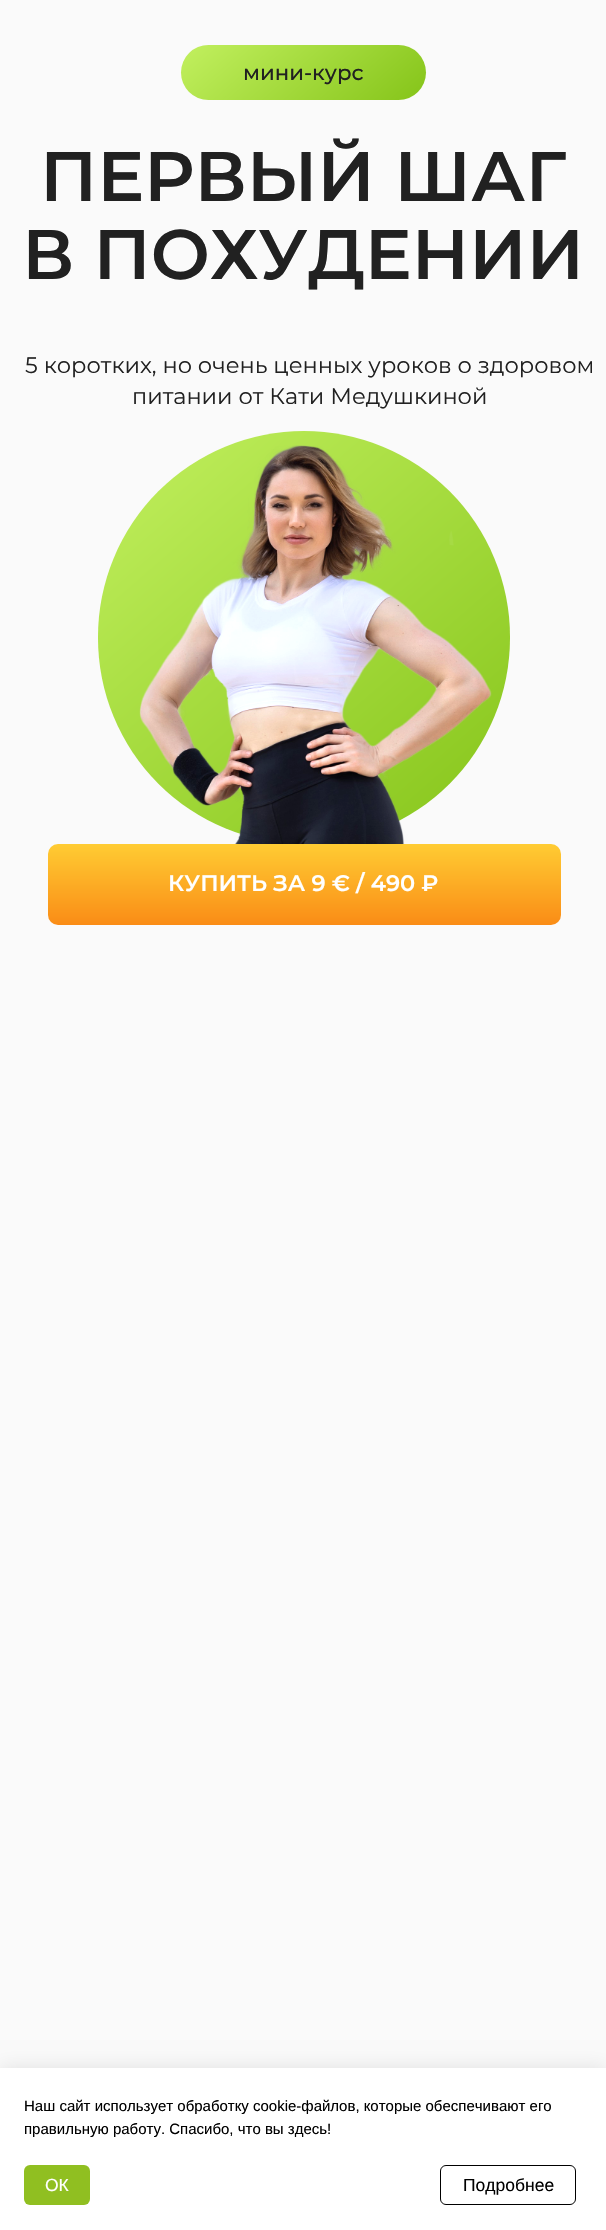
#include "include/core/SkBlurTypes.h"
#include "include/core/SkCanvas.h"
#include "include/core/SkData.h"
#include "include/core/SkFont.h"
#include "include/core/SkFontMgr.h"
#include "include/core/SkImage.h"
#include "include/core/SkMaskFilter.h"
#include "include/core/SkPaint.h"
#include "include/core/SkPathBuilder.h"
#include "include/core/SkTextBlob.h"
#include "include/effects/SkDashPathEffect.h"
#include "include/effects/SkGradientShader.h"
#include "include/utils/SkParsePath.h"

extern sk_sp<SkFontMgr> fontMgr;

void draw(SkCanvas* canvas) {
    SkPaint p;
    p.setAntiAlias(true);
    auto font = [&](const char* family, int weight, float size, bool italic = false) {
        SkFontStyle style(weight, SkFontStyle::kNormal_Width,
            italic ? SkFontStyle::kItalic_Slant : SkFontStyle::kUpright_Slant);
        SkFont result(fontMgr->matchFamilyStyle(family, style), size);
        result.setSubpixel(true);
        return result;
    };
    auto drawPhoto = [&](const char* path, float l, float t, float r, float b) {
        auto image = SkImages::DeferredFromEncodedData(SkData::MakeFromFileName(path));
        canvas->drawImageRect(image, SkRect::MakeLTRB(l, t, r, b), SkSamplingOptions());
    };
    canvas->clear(0xFFFAFAFA);
    {
        const SkColor colors[] = {0xFFC2F05F, 0xFF85C419};
        const float stops[] = {0, 1};
        const SkPoint ends[] = {{237, -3.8f}, {370, 149}};
        p.setShader(SkGradientShader::MakeLinear(ends, colors, stops, 2, SkTileMode::kClamp));
        p.setAlpha(255);
    }
    canvas->drawRoundRect(SkRect::MakeLTRB(181, 45, 426, 100), 27.5f, 27.5f, p);
    auto font1 = font("Montserrat", 500, 21.25f);
    p.setShader(nullptr);
    p.setColor(0xFF212121);
    canvas->drawString("мини-курс", 243, 80, font1, p);
    auto font2 = font("Montserrat", 600, 70);
    canvas->drawString("ПЕРВЫЙ ШАГ", 40, 201, font2, p);
    canvas->drawString("В ПОХУДЕНИИ", 22, 279, font2, p);
    auto font3 = font("Montserrat", 400, 22.5f);
    canvas->drawString("5 коротких, но очень ценных уроков о здоровом", 25, 373, font3, p);
    canvas->drawString("питании от Кати Медушкиной", 132, 404, font3, p);
    {
        const SkColor colors[] = {0xFFC2F05F, 0xFF85C419};
        const float stops[] = {0, 1};
        const SkPoint ends[] = {{113, 418}, {495, 857}};
        p.setShader(SkGradientShader::MakeLinear(ends, colors, stops, 2, SkTileMode::kClamp));
        p.setAlpha(255);
    }
    canvas->drawRoundRect(SkRect::MakeLTRB(98, 431, 510, 844), 206, 206, p);
    drawPhoto("media/1.png", 139, 445, 492, 844);
    {
        const SkColor colors[] = {0xFFFFCC33, 0xFFFA8C16};
        const float stops[] = {0, 1};
        const SkPoint ends[] = {{304, 844}, {304, 925}};
        p.setShader(SkGradientShader::MakeLinear(ends, colors, stops, 2, SkTileMode::kClamp));
        p.setAlpha(255);
    }
    canvas->drawRoundRect(SkRect::MakeLTRB(48, 844, 561, 925), 10, 10, p);
    auto font4 = font("Montserrat", 600, 22.5f);
    p.setShader(nullptr);
    p.setColor(0xFFFFFFFF);
    canvas->drawString("КУПИТЬ ЗА 9 € / 490 ₽", 168, 891, font4, p);
    p.setColor(0x1A000000);
    p.setMaskFilter(SkMaskFilter::MakeBlur(kNormal_SkBlurStyle, 9.5f));
    canvas->drawRect(SkRect::MakeLTRB(0, 2068, 606, 2230), p);
    p.setMaskFilter(nullptr);
    p.setColor(0xFFFFFFFF);
    canvas->drawRect(SkRect::MakeLTRB(0, 2068, 606, 2230), p);
    auto font5 = font("Liberation Sans", 400, 15);
    p.setColor(0xFF000000);
    canvas->drawString("Наш сайт использует обработку cookie-файлов, которые обеспечивают его", 24, 2111, font5, p);
    canvas->drawString("правильную работу. Спасибо, что вы здесь!", 24, 2134, font5, p);
    p.setColor(0xFF90BF21);
    canvas->drawRoundRect(SkRect::MakeLTRB(24, 2165, 90, 2205), 6, 6, p);
    auto font6 = font("Liberation Sans", 400, 17.5f);
    p.setColor(0xFFFFFFFF);
    canvas->drawString("ОК", 45, 2191, font6, p);
    p.setStyle(SkPaint::kStroke_Style);
    p.setStrokeWidth(1);
    p.setColor(0xFF000000);
    canvas->drawRoundRect(SkRect::MakeLTRB(440.5f, 2165.5f, 575.5f, 2204.5f), 5.5f, 5.5f, p);
    p.setStyle(SkPaint::kFill_Style);
    canvas->drawString("Подробнее", 463, 2191, font6, p);
}
